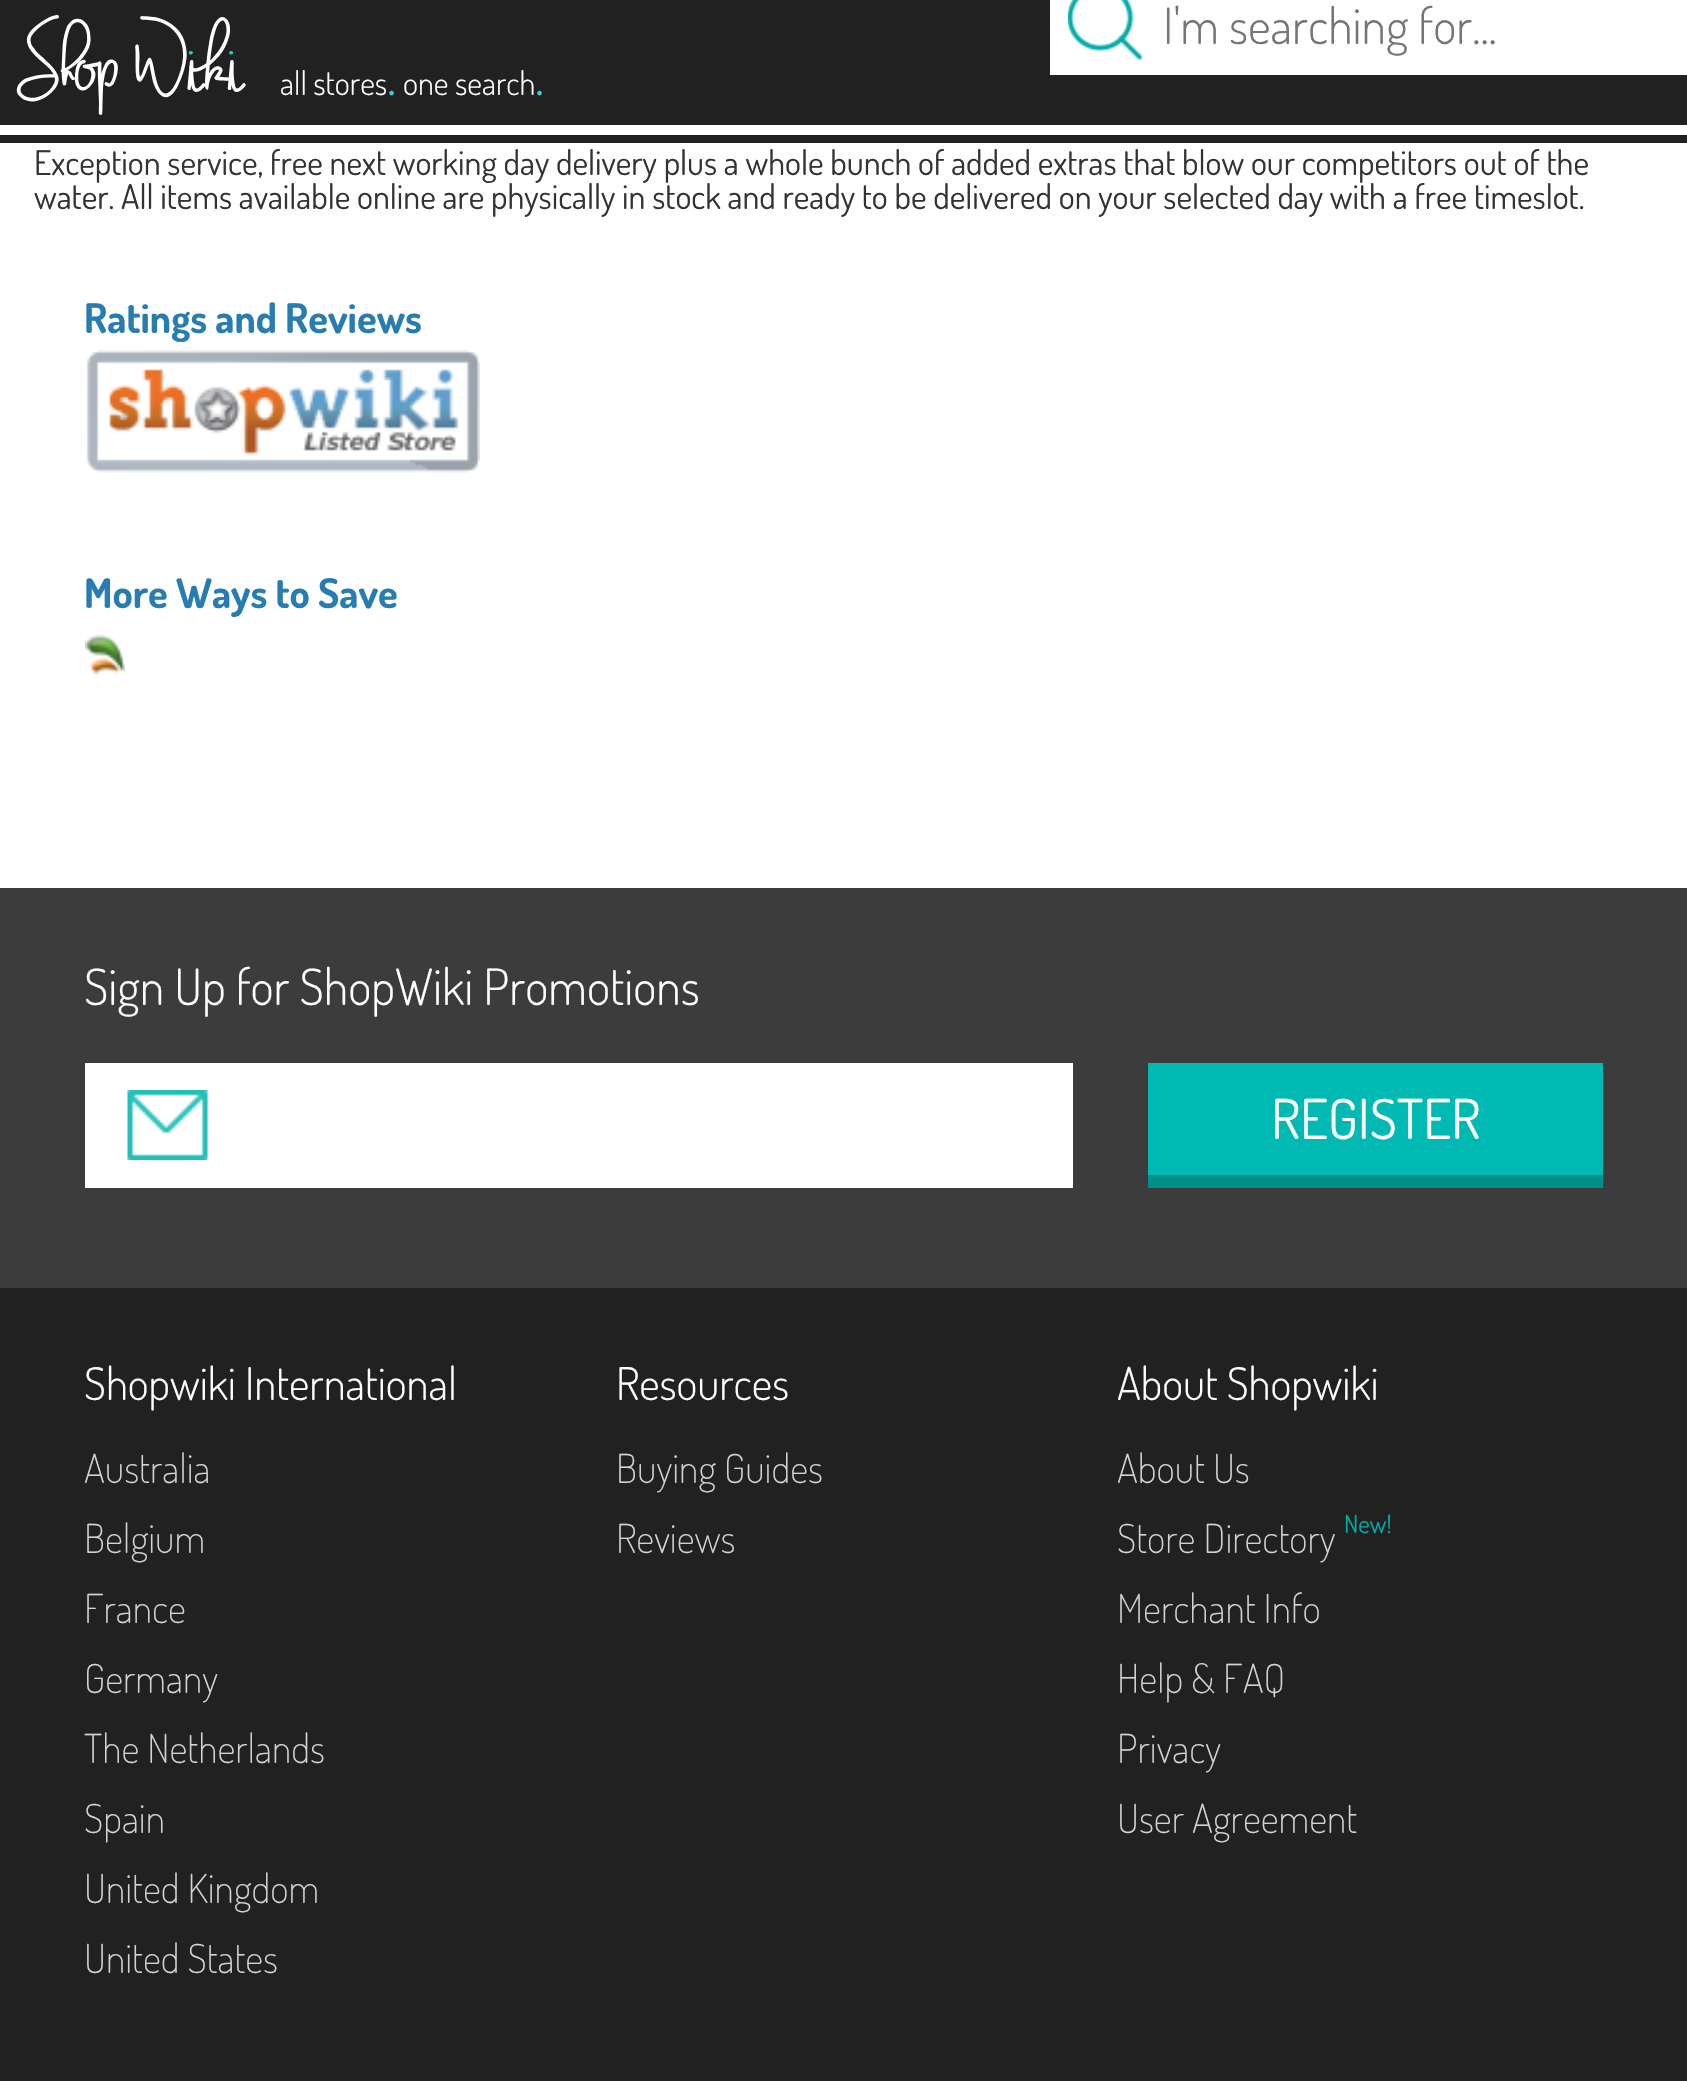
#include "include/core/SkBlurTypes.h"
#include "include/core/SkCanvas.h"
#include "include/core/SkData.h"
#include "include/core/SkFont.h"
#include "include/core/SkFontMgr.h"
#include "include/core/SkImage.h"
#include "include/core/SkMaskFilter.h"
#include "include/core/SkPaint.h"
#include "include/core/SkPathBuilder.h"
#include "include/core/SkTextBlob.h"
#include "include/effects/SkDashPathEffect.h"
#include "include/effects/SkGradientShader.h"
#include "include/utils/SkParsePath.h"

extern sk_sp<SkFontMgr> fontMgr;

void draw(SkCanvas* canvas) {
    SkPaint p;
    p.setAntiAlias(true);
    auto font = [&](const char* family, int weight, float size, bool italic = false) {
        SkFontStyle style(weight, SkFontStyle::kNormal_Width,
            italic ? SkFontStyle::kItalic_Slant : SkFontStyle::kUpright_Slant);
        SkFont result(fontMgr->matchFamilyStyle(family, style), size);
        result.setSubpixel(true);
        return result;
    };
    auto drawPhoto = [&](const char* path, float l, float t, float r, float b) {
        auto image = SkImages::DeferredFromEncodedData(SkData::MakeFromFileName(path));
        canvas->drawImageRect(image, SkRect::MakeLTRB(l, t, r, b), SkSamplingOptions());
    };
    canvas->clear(0xFFFFFFFF);
    p.setColor(0xFF212121);
    canvas->drawRect(SkRect::MakeLTRB(0, 0, 1687, 125), p);
    drawPhoto("media/1.png", 16, 15, 246, 115);
    auto font1 = font("Dosis", 300, 32.5f);
    p.setColor(0xFFFFFFFF);
    canvas->drawString("all stores", 280, 95, font1, p);
    auto font2 = font("Dosis", 300, 55);
    p.setColor(0xFF42CDCE);
    canvas->drawString(".", 387, 95, font2, p);
    p.setColor(0xFFFFFFFF);
    canvas->drawString("one search", 403, 95, font1, p);
    p.setColor(0xFF42CDCE);
    canvas->drawString(".", 535, 95, font2, p);
    p.setColor(0xFFFFFFFF);
    canvas->drawRect(SkRect::MakeLTRB(1050, 0, 1687, 75), p);
    drawPhoto("media/2.png", 1068, 0, 1143, 60);
    auto font3 = font("Dosis", 300, 50);
    p.setColor(0xFF757575);
    canvas->drawString("I'm searching for...", 1163, 44, font3, p);
    p.setColor(0xFF212121);
    canvas->drawRect(SkRect::MakeLTRB(0, 135, 1687, 143), p);
    auto font4 = font("Dosis", 400, 34);
    p.setColor(0xFF333333);
    canvas->drawString("Exception service, free next working day delivery plus a whole bunch of added extras that blow our competitors out of the", 34, 175, font4, p);
    canvas->drawString("water. All items available online are physically in stock and ready to be delivered on your selected day with a free timeslot.", 34, 209, font4, p);
    auto font5 = font("Dosis", 700, 40.75f);
    p.setColor(0xFF277CB1);
    canvas->drawString("Ratings and Reviews", 84, 333, font5, p);
    drawPhoto("media/3.png", 86, 350, 480, 473);
    canvas->drawString("More Ways to Save", 84, 608, font5, p);
    drawPhoto("media/4.png", 85, 635, 125, 675);
    p.setColor(0xFF3C3C3C);
    canvas->drawRect(SkRect::MakeLTRB(0, 888, 1687, 1288), p);
    p.setColor(0xFFFFFFFF);
    canvas->drawString("Sign Up for ShopWiki Promotions", 84, 1005, font3, p);
    canvas->drawRect(SkRect::MakeLTRB(85, 1063, 1073, 1188), p);
    drawPhoto("media/5.png", 127, 1090, 208, 1160);
    p.setColor(0xFF00B9B2);
    canvas->drawRect(SkRect::MakeLTRB(1148, 1063, 1603, 1175), p);
    p.setColor(0xFF008E89);
    canvas->drawRect(SkRect::MakeLTRB(1148, 1175, 1603, 1188), p);
    auto font6 = font("Dosis", 400, 55);
    p.setColor(0xFFFFFFFF);
    canvas->drawString("REGISTER", 1271, 1139, font6, p);
    p.setColor(0xFF212121);
    canvas->drawRect(SkRect::MakeLTRB(0, 1288, 1687, 2081), p);
    auto font7 = font("Dosis", 300, 45);
    p.setColor(0xFFFFFFFF);
    canvas->drawString("Shopwiki International", 84, 1400, font7, p);
    auto font8 = font("Dosis", 200, 40);
    p.setColor(0xFFD4D4D4);
    {
        const struct { const char* s; float x, y; } items[] = {
            {"Australia", 84, 1483},
            {"Belgium", 84, 1553},
            {"France", 84, 1623},
            {"Germany", 84, 1693},
            {"The Netherlands", 84, 1763},
            {"Spain", 84, 1833},
            {"United Kingdom", 84, 1903},
            {"United States", 84, 1973},
        };
        for (auto [s, x, y] : items) {
            canvas->drawString(s, x, y, font8, p);
        }
    }
    p.setColor(0xFFFFFFFF);
    canvas->drawString("Resources", 616, 1400, font7, p);
    p.setColor(0xFFD4D4D4);
    canvas->drawString("Buying Guides", 616, 1483, font8, p);
    canvas->drawString("Reviews", 616, 1553, font8, p);
    p.setColor(0xFFFFFFFF);
    canvas->drawString("About Shopwiki", 1117, 1400, font7, p);
    p.setColor(0xFFD4D4D4);
    canvas->drawString("About Us", 1117, 1483, font8, p);
    canvas->drawString("Store Directory", 1117, 1553, font8, p);
    auto font9 = font("Dosis", 400, 25);
    p.setColor(0xFF00ABA5);
    canvas->drawString("New!", 1344, 1533, font9, p);
    p.setColor(0xFFD4D4D4);
    {
        const struct { const char* s; float x, y; } items[] = {
            {"Merchant Info", 1117, 1623},
            {"Help & FAQ", 1117, 1693},
            {"Privacy", 1117, 1763},
            {"User Agreement", 1117, 1833},
        };
        for (auto [s, x, y] : items) {
            canvas->drawString(s, x, y, font8, p);
        }
    }
}
